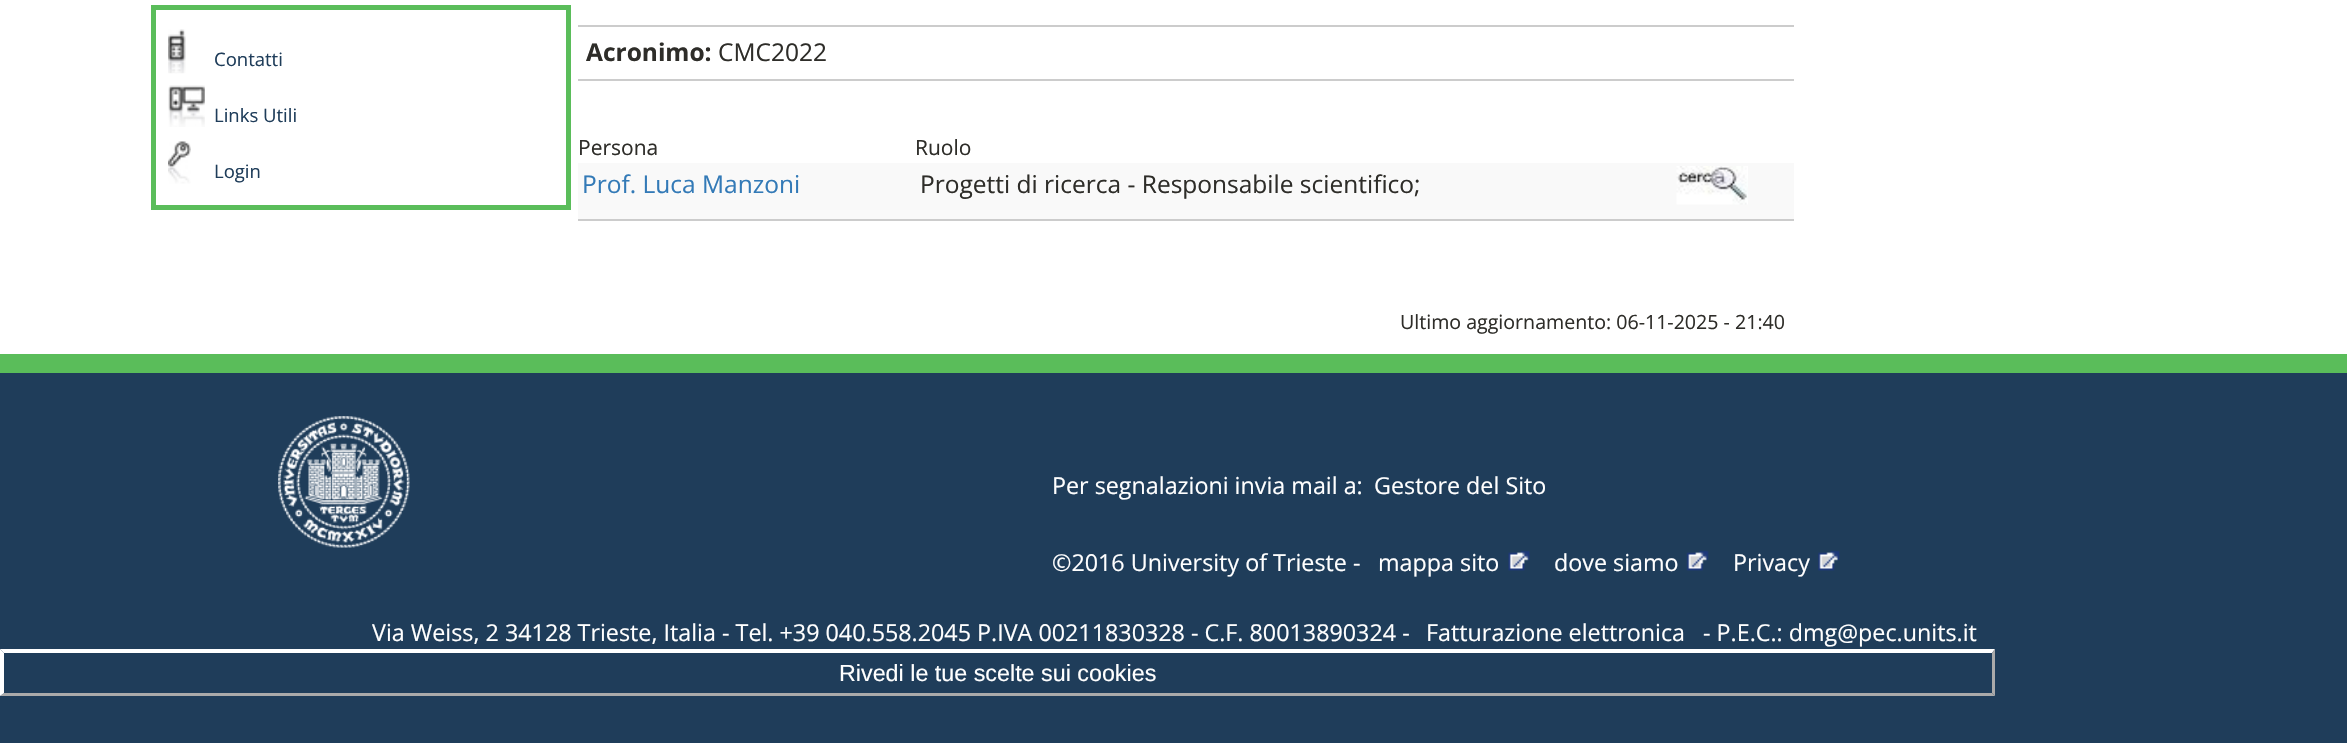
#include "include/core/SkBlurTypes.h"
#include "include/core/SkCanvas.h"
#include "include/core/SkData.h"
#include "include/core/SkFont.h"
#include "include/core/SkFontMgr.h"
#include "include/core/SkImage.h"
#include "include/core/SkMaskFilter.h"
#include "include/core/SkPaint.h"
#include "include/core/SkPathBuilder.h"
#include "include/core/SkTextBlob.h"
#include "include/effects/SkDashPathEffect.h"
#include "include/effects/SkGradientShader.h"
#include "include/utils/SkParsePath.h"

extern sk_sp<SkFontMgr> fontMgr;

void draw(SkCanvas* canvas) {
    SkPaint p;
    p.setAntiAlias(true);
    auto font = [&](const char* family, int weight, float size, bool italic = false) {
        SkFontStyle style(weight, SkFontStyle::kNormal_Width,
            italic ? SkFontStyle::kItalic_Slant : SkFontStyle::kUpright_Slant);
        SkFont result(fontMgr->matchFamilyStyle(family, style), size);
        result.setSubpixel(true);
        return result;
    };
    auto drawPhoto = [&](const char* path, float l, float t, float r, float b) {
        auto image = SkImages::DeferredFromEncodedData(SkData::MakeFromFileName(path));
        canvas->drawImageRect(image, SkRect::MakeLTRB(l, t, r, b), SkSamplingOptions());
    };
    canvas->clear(0xFFFFFFFF);
    p.setStyle(SkPaint::kStroke_Style);
    p.setStrokeWidth(5);
    p.setColor(0xFF5ABD5A);
    canvas->drawRect(SkRect::MakeLTRB(153.5f, 7.5f, 568.5f, 207.5f), p);
    drawPhoto("media/1.png", 168, 29, 186, 74);
    auto font1 = font("Open Sans", 400, 18.5f);
    p.setStyle(SkPaint::kFill_Style);
    p.setColor(0xFF1F3D5A);
    canvas->drawString("Contatti", 214, 66, font1, p);
    drawPhoto("media/2.png", 168, 85, 205, 127);
    canvas->drawString("Links Utili", 214, 122, font1, p);
    drawPhoto("media/3.png", 168, 141, 191, 184);
    canvas->drawString("Login", 214, 178, font1, p);
    p.setColor(0xFFCCCCCC);
    canvas->drawRect(SkRect::MakeLTRB(578, 25, 1794, 27), p);
    canvas->drawRect(SkRect::MakeLTRB(578, 79, 1794, 81), p);
    auto font2 = font("Open Sans", 700, 24.5f);
    p.setColor(0xFF2E2D29);
    canvas->drawString("Acronimo:", 586, 61, font2, p);
    auto font3 = font("Open Sans", 400, 24.5f);
    canvas->drawString("CMC2022", 718, 61, font3, p);
    auto font4 = font("Open Sans", 400, 21);
    canvas->drawString("Persona", 578, 155, font4, p);
    canvas->drawString("Ruolo", 915, 155, font4, p);
    p.setColor(0xFFF9F9F9);
    canvas->drawRect(SkRect::MakeLTRB(578, 163, 1794, 219), p);
    p.setColor(0xFFCCCCCC);
    canvas->drawRect(SkRect::MakeLTRB(578, 219, 1794, 221), p);
    p.setColor(0xFF337AB7);
    canvas->drawString("Prof. Luca Manzoni", 582, 193, font3, p);
    p.setColor(0xFF2E2D29);
    canvas->drawString("Progetti di ricerca - Responsabile scientifico;", 920, 193, font3, p);
    drawPhoto("media/4.png", 1676, 166, 1748, 205);
    auto font5 = font("Open Sans", 400, 19.6f);
    canvas->drawString("Ultimo aggiornamento: 06-11-2025 - 21:40", 1400, 329, font5, p);
    p.setColor(0xFF1F3D5A);
    canvas->drawRect(SkRect::MakeLTRB(0, 373, 2347, 743), p);
    p.setColor(0xFF5ABD5A);
    canvas->drawRect(SkRect::MakeLTRB(0, 354, 2347, 373), p);
    drawPhoto("media/5.png", 278, 416, 410, 548);
    auto font6 = font("Open Sans", 400, 23.3f);
    p.setColor(0xFFFFFFFF);
    {
        const struct { const char* s; float x, y; } items[] = {
            {"Per segnalazioni invia mail a:", 1052, 494},
            {"Gestore del Sito", 1374, 494},
            {"©2016 University of Trieste -", 1052, 571},
            {"mappa sito", 1378, 571},
        };
        for (auto [s, x, y] : items) {
            canvas->drawString(s, x, y, font6, p);
        }
    }
    drawPhoto("media/6.png", 1508, 550, 1530, 571);
    canvas->drawString("dove siamo", 1554, 571, font6, p);
    drawPhoto("media/7.png", 1686, 550, 1709, 571);
    canvas->drawString("Privacy", 1733, 571, font6, p);
    drawPhoto("media/8.png", 1818, 550, 1840, 571);
    {
        const struct { const char* s; float x, y; } items[] = {
            {"Via Weiss, 2 34128 Trieste, Italia - Tel. +39 040.558.2045 P.IVA 00211830328 - C.F. 80013890324 -", 372, 641},
            {"Fatturazione elettronica", 1426, 641},
            {"- P.E.C.: dmg@pec.units.it", 1703, 641},
        };
        for (auto [s, x, y] : items) {
            canvas->drawString(s, x, y, font6, p);
        }
    }
    canvas->drawPath(SkPathBuilder().moveTo(0, 649).lineTo(1995, 649).lineTo(1992, 653).lineTo(4, 653).close().detach(), p);
    p.setColor(0xFFAAAAAA);
    canvas->drawPath(SkPathBuilder().moveTo(1995, 649).lineTo(1995, 696).lineTo(1992, 693).lineTo(1992, 653).close().detach(), p);
    canvas->drawPath(SkPathBuilder().moveTo(1995, 696).lineTo(0, 696).lineTo(4, 693).lineTo(1992, 693).close().detach(), p);
    p.setColor(0xFFFFFFFF);
    canvas->drawPath(SkPathBuilder().moveTo(0, 696).lineTo(0, 649).lineTo(4, 653).lineTo(4, 693).close().detach(), p);
    auto font7 = font("Liberation Sans", 400, 23.3f);
    canvas->drawString("Rivedi le tue scelte sui cookies", 839, 681, font7, p);
}
